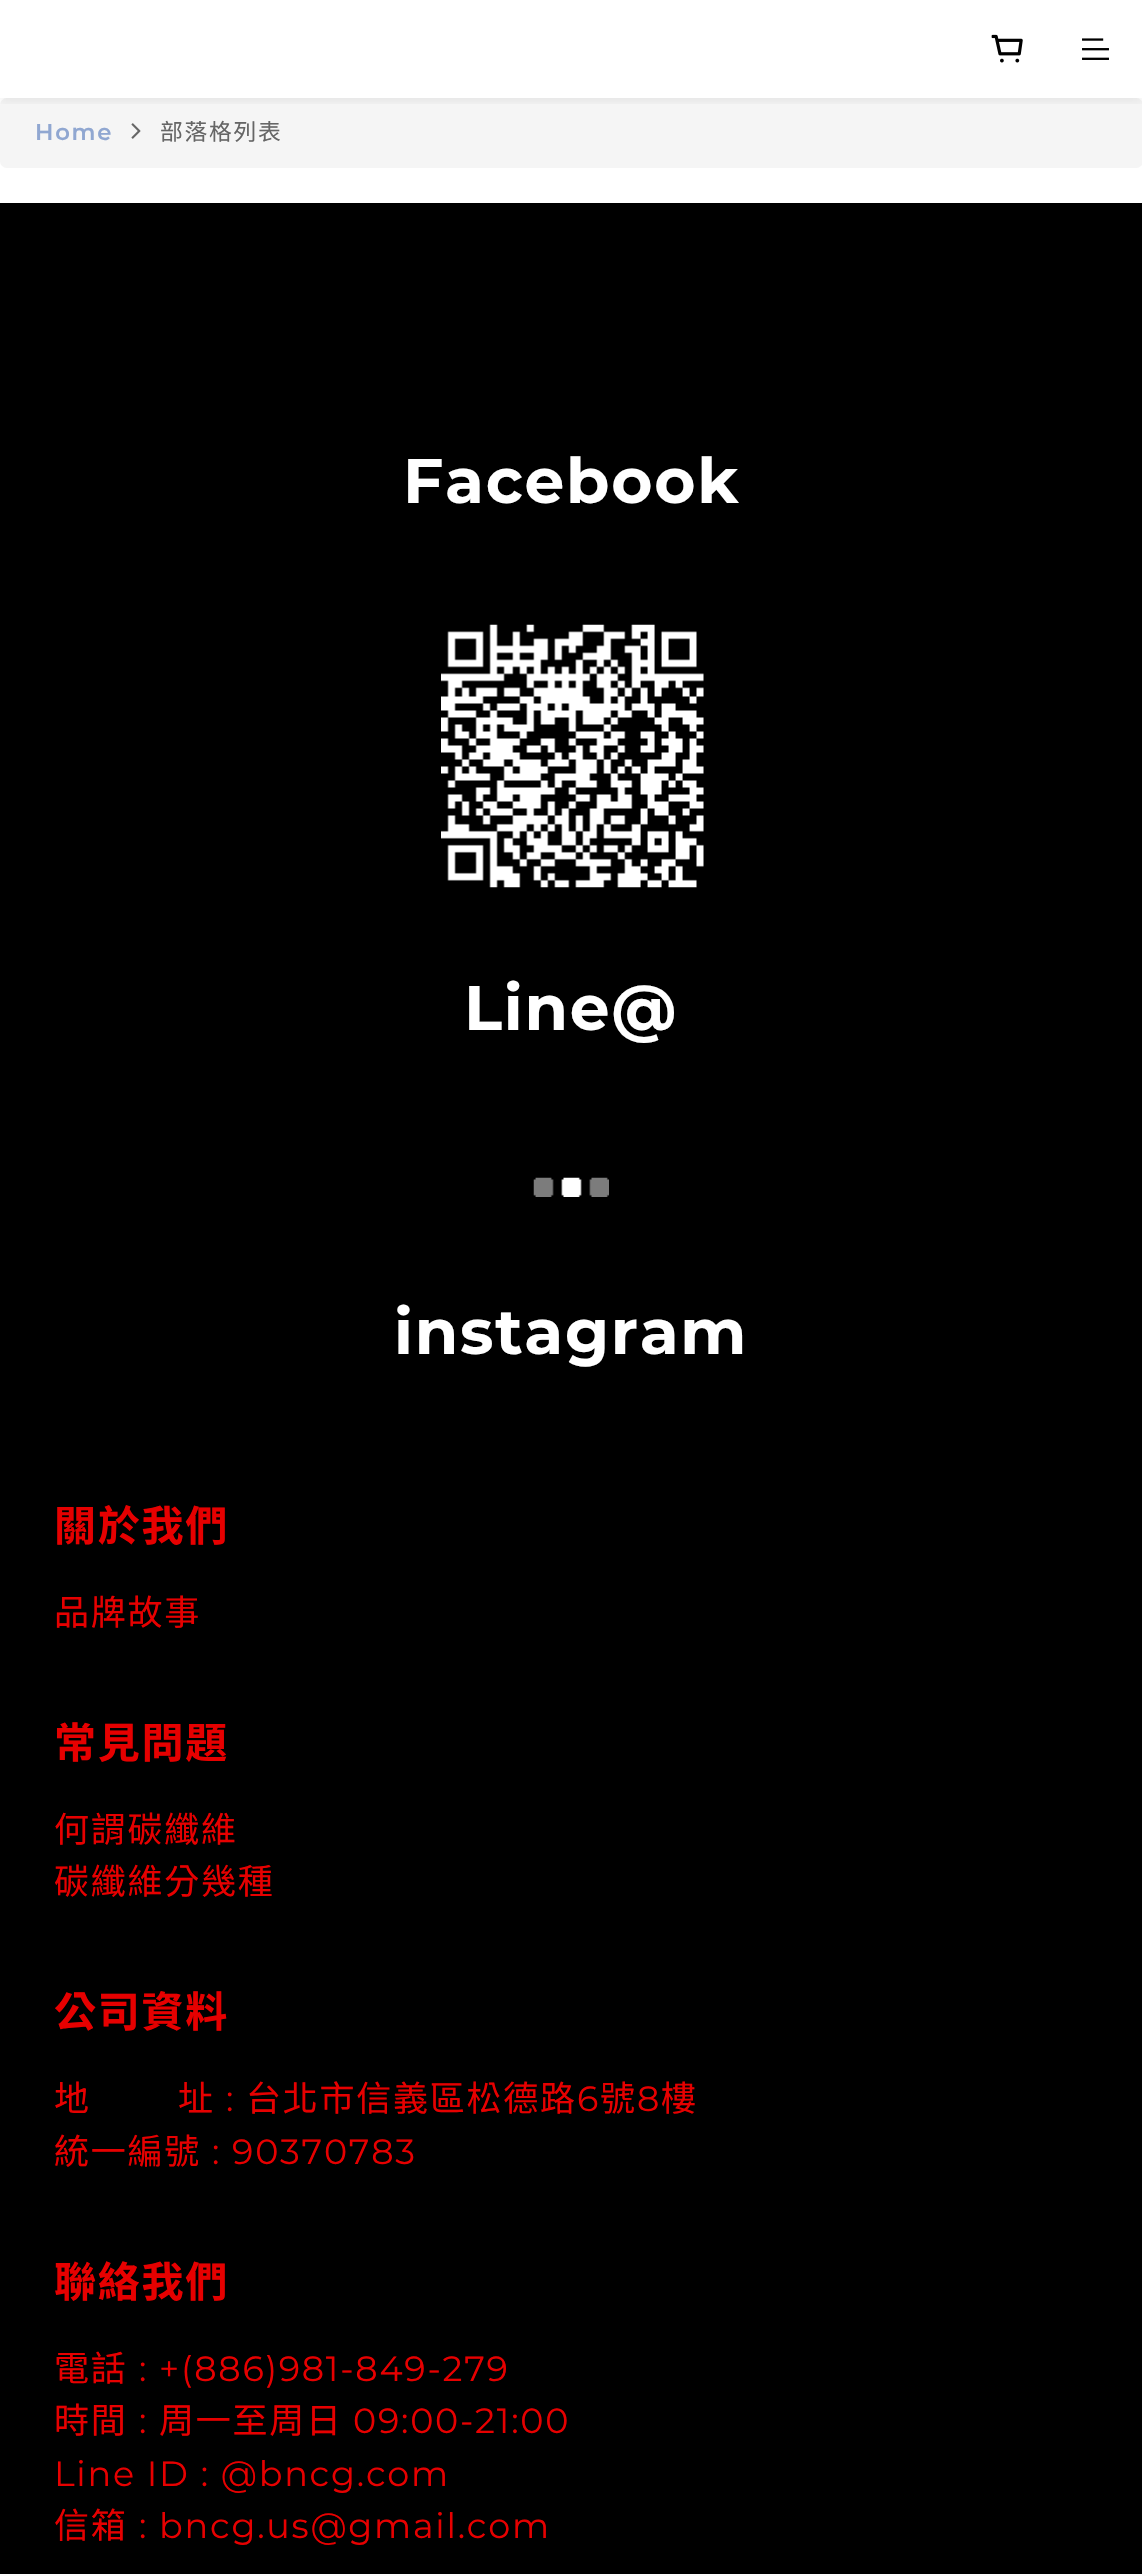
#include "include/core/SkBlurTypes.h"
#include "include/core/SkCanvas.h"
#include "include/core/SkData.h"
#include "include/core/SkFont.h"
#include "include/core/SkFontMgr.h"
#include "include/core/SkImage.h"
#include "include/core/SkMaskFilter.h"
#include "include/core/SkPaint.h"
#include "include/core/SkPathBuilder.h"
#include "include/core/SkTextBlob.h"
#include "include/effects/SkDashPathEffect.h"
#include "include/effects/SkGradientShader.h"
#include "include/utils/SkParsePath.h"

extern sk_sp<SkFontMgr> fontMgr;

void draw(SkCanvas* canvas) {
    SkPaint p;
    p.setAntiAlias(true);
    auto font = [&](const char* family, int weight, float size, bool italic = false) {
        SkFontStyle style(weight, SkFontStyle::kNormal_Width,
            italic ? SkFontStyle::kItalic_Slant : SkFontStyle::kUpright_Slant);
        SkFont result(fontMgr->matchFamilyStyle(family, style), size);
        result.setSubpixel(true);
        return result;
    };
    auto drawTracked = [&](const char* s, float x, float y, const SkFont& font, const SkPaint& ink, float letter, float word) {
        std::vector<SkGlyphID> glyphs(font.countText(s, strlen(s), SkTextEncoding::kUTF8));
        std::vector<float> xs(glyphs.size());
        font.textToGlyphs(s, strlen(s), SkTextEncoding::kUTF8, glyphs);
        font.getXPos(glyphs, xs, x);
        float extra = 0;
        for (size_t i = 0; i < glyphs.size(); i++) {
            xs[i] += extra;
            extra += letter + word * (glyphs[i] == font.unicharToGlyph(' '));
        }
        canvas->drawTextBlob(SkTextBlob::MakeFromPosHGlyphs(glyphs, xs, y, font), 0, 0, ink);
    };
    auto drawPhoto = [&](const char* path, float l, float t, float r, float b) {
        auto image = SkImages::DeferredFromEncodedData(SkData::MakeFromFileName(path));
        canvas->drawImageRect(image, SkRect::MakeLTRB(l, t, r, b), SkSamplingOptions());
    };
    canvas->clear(0xFFFFFFFF);
    p.setColor(0xFFF5F5F5);
    canvas->drawRoundRect(SkRect::MakeLTRB(0, 98, 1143, 168), 7, 7, p);
    canvas->save();
    canvas->clipRect(SkRect::MakeLTRB(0, 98, 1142, 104));
    p.setColor(0x0F000000);
    p.setMaskFilter(SkMaskFilter::MakeBlur(kNormal_SkBlurStyle, 5));
    canvas->drawRect(SkRect::MakeLTRB(0, 4, 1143, 102), p);
    p.setMaskFilter(nullptr);
    canvas->restore();
    drawPhoto("media/1.png", 991, 34, 1023, 63);
    drawPhoto("media/2.png", 1082, 38, 1109, 60);
    auto font1 = font("Montserrat", 600, 22.75f);
    p.setColor(0xFF90A7D1);
    drawTracked("Home", 35, 140, font1, p, 1.75f, 0);
    drawPhoto("media/3.png", 131, 123, 141, 139);
    auto font2 = font("Noto Sans TC", 400, 22.75f);
    p.setColor(0xFF666666);
    drawTracked("部落格列表", 160, 140, font2, p, 1.75f, 0);
    p.setColor(0xFF000000);
    canvas->drawRect(SkRect::MakeLTRB(0, 203, 1142, 2574), p);
    auto font3 = font("Montserrat", 700, 63);
    p.setColor(0xFFFFFFFF);
    drawTracked("Facebook", 403, 503, font3, p, 1.75f, 0);
    drawPhoto("media/4.png", 441, 624, 704, 888);
    drawTracked("Line@", 464, 1030, font3, p, 1.75f, 0);
    drawPhoto("media/5.png", 533, 1177, 609, 1197);
    drawTracked("instagram", 394, 1354, font3, p, 1.75f, 0);
    auto font4 = font("Noto Sans TC", 700, 42);
    p.setColor(0xFFE60000);
    drawTracked("關於我們", 54, 1541, font4, p, 1.75f, 0);
    auto font5 = font("Noto Sans TC", 400, 35);
    drawTracked("品牌故事", 54, 1625, font5, p, 1.75f, 0);
    drawTracked("常見問題", 54, 1758, font4, p, 1.75f, 0);
    drawTracked("何謂碳纖維", 54, 1842, font5, p, 1.75f, 0);
    drawTracked("碳纖維分幾種", 54, 1894, font5, p, 1.75f, 0);
    drawTracked("公司資料", 54, 2027, font4, p, 1.75f, 0);
    drawTracked("地", 54, 2111, font5, p, 1.75f, 0);
    drawTracked("址", 178, 2111, font5, p, 1.75f, 0);
    auto font6 = font("Montserrat", 400, 35);
    drawTracked(":", 226, 2111, font6, p, 1.75f, 0);
    drawTracked("台北市信義區松德路", 246, 2111, font5, p, 1.75f, 0);
    drawTracked("6", 577, 2111, font6, p, 1.75f, 0);
    drawTracked("號", 600, 2111, font5, p, 1.75f, 0);
    drawTracked("8", 637, 2111, font6, p, 1.75f, 0);
    drawTracked("樓", 661, 2111, font5, p, 1.75f, 0);
    drawTracked("統一編號", 54, 2164, font5, p, 1.75f, 0);
    drawTracked(": 90370783", 212, 2164, font6, p, 1.75f, 0);
    drawTracked("聯絡我們", 54, 2297, font4, p, 1.75f, 0);
    drawTracked("電話", 54, 2381, font5, p, 1.75f, 0);
    drawTracked(": +(886)981-849-279", 139, 2381, font6, p, 1.75f, 0);
    drawTracked("時間", 54, 2433, font5, p, 1.75f, 0);
    drawTracked(":", 139, 2433, font6, p, 1.75f, 0);
    drawTracked("周一至周日", 159, 2433, font5, p, 1.75f, 0);
    drawTracked("09:00-21:00", 353, 2433, font6, p, 1.75f, 0);
    drawTracked("Line ID : @bncg.com", 54, 2486, font6, p, 1.75f, 0);
    drawTracked("信箱", 54, 2538, font5, p, 1.75f, 0);
    drawTracked(": bncg.us@gmail.com", 139, 2538, font6, p, 1.75f, 0);
}
